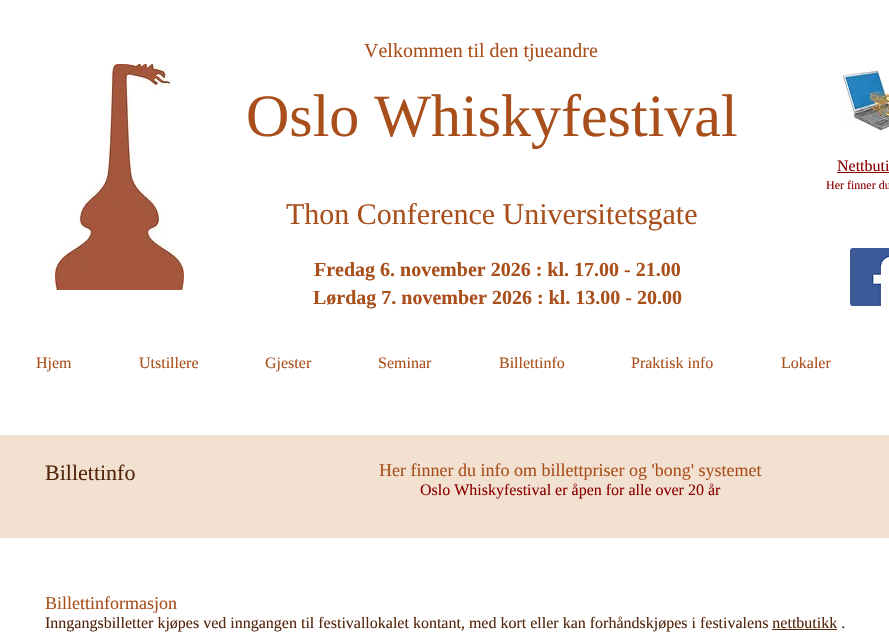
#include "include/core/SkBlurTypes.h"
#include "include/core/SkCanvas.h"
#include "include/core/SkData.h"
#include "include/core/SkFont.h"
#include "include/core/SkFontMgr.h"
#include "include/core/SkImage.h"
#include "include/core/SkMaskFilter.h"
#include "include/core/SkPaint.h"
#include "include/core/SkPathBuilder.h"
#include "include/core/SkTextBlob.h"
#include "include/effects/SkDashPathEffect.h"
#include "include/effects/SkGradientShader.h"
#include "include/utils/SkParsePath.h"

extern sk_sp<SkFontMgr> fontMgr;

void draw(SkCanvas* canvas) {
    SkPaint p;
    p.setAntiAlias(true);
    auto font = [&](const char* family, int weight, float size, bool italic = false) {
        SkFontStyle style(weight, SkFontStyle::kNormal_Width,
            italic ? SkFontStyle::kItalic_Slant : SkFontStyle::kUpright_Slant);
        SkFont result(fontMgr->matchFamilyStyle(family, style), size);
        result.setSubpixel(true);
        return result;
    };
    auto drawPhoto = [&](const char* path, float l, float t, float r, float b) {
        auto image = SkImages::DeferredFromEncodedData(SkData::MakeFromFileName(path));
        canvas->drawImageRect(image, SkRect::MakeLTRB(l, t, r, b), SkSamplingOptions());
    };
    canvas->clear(0xFFFFFFFF);
    auto font1 = font("Liberation Serif", 400, 20);
    p.setColor(0xFFA94F1B);
    canvas->drawString("Velkommen til den tjueandre", 364, 57, font1, p);
    drawPhoto("media/1.png", 55, 64, 184, 290);
    auto font2 = font("Liberation Serif", 400, 60);
    canvas->drawString("Oslo Whiskyfestival", 246, 136, font2, p);
    auto font3 = font("Liberation Serif", 400, 30);
    canvas->drawString("Thon Conference Universitetsgate", 286, 224, font3, p);
    drawPhoto("media/2.png", 842, 68, 889, 132);
    auto font4 = font("Liberation Serif", 400, 16);
    p.setColor(0xFF8B0000);
    canvas->drawString("Nettbuti", 837, 171, font4, p);
    canvas->drawRect(SkRect::MakeLTRB(837, 172, 889, 173), p);
    auto font5 = font("Liberation Serif", 400, 12);
    canvas->drawString("Her finner du", 826, 189, font5, p);
    auto font6 = font("Liberation Serif", 700, 20);
    p.setColor(0xFFA94F1B);
    canvas->drawString("Fredag 6. november 2026 : kl. 17.00 - 21.00", 314, 276, font6, p);
    canvas->drawString("Lørdag 7. november 2026 : kl. 13.00 - 20.00", 313, 304, font6, p);
    drawPhoto("media/3.png", 850, 248, 889, 306);
    {
        const struct { const char* s; float x, y; } items[] = {
            {"Hjem", 36, 368},
            {"Utstillere", 139, 368},
            {"Gjester", 265, 368},
            {"Seminar", 378, 368},
            {"Billettinfo", 499, 368},
            {"Praktisk info", 631, 368},
            {"Lokaler", 781, 368},
        };
        for (auto [s, x, y] : items) {
            canvas->drawString(s, x, y, font4, p);
        }
    }
    p.setColor(0xFFF2E0D0);
    canvas->drawRect(SkRect::MakeLTRB(0, 435, 889, 538), p);
    auto font7 = font("Liberation Serif", 400, 22);
    p.setColor(0xFF54270D);
    canvas->drawString("Billettinfo", 45, 480, font7, p);
    auto font8 = font("Liberation Serif", 400, 18);
    p.setColor(0xFFA94F1B);
    canvas->drawString("Her finner du info om billettpriser og 'bong' systemet", 379, 476, font8, p);
    p.setColor(0xFF8B0000);
    canvas->drawString("Oslo Whiskyfestival er åpen for alle over 20 år", 420, 495, font4, p);
    p.setColor(0xFFA94F1B);
    canvas->drawString("Billettinformasjon", 45, 609, font8, p);
    p.setColor(0xFF54270D);
    canvas->drawString("Inngangsbilletter kjøpes ved inngangen til festivallokalet kontant, med kort eller kan forhåndskjøpes i festivalens nettbutikk .", 45, 628, font4, p);
    canvas->drawRect(SkRect::MakeLTRB(772, 629, 837, 630), p);
}
